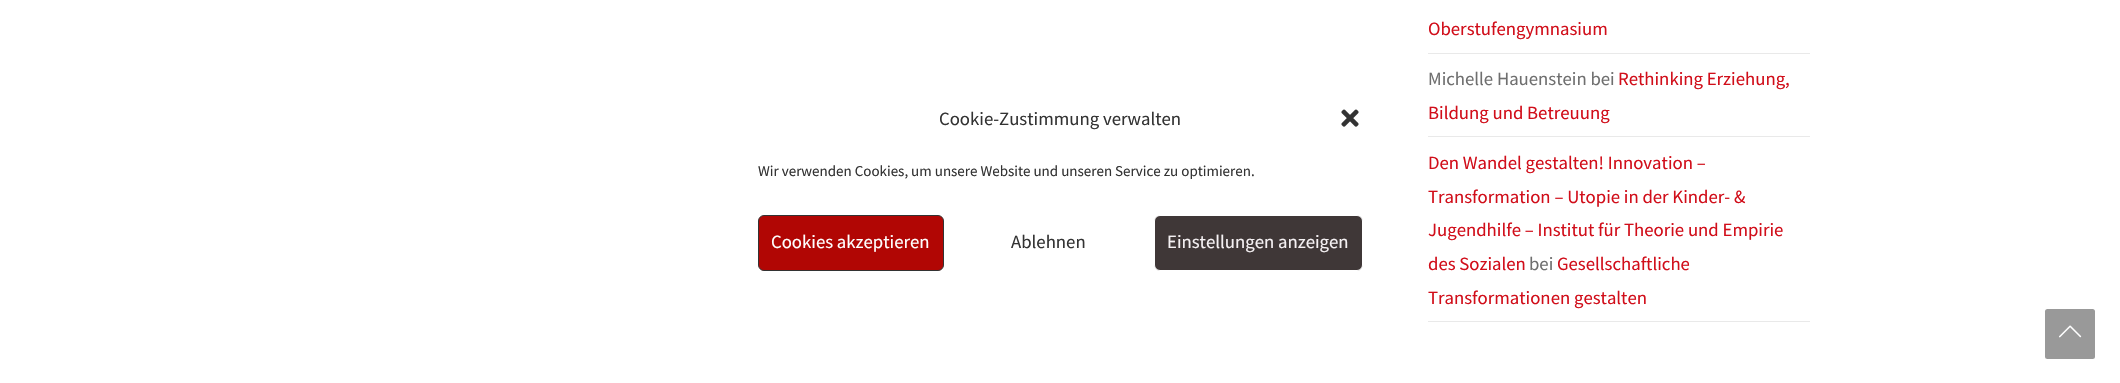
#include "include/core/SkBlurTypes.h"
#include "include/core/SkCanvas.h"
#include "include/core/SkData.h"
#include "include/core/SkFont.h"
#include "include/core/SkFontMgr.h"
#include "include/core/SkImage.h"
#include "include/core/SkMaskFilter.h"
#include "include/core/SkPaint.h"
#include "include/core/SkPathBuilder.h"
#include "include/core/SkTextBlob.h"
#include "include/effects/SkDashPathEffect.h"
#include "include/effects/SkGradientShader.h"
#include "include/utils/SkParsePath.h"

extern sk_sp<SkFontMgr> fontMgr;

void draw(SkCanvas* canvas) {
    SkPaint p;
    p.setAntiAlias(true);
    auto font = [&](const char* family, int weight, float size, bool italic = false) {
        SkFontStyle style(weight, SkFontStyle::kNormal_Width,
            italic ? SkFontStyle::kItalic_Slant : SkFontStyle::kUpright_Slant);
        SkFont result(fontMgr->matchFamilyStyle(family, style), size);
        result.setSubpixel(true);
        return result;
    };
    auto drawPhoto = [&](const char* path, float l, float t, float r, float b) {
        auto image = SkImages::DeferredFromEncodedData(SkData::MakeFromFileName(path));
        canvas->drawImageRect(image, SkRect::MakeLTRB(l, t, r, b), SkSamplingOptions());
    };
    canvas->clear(0xFFFFFFFF);
    auto font1 = font("Source Sans Pro", 400, 18.75f);
    p.setColor(0xFF333333);
    canvas->drawString("Cookie-Zustimmung verwalten", 939, 125, font1, p);
    drawPhoto("media/1.png", 1341, 109, 1359, 127);
    auto font2 = font("Source Sans Pro", 400, 15);
    canvas->drawString("Wir verwenden Cookies, um unsere Website und unseren Service zu optimieren.", 758, 176, font2, p);
    p.setColor(0xFFB10604);
    canvas->drawRoundRect(SkRect::MakeLTRB(758.5f, 215.5f, 943.5f, 270.5f), 5.5f, 5.5f, p);
    p.setStyle(SkPaint::kStroke_Style);
    p.setStrokeWidth(1);
    p.setColor(0xFF333333);
    canvas->drawRoundRect(SkRect::MakeLTRB(758.5f, 215.5f, 943.5f, 270.5f), 5.5f, 5.5f, p);
    p.setStyle(SkPaint::kFill_Style);
    p.setColor(0xFFFFFFFF);
    canvas->drawString("Cookies akzeptieren", 771, 248, font1, p);
    p.setColor(0xFF333333);
    canvas->drawString("Ablehnen", 1011, 248, font1, p);
    p.setColor(0xFF3F3737);
    canvas->drawRoundRect(SkRect::MakeLTRB(1154.5f, 215.5f, 1362.5f, 270.5f), 5.5f, 5.5f, p);
    p.setStyle(SkPaint::kStroke_Style);
    p.setColor(0xFFFFFFFF);
    canvas->drawRoundRect(SkRect::MakeLTRB(1154.5f, 215.5f, 1362.5f, 270.5f), 5.5f, 5.5f, p);
    p.setStyle(SkPaint::kFill_Style);
    p.setColor(0xFFF5F1F3);
    canvas->drawString("Einstellungen anzeigen", 1167, 248, font1, p);
    p.setColor(0xFFE9E9E9);
    canvas->drawRect(SkRect::MakeLTRB(1428, 53, 1810, 54), p);
    p.setColor(0xFFD10E1A);
    canvas->drawString("Oberstufengymnasium", 1428, 35, font1, p);
    p.setColor(0xFFE9E9E9);
    canvas->drawRect(SkRect::MakeLTRB(1428, 136, 1810, 137), p);
    p.setColor(0xFF6F6F6F);
    canvas->drawString("Michelle Hauenstein bei", 1428, 85, font1, p);
    p.setColor(0xFFD10E1A);
    canvas->drawString("Rethinking Erziehung,", 1618, 85, font1, p);
    canvas->drawString("Bildung und Betreuung", 1428, 119, font1, p);
    p.setColor(0xFFE9E9E9);
    canvas->drawRect(SkRect::MakeLTRB(1428, 321, 1810, 322), p);
    p.setColor(0xFFD10E1A);
    {
        const struct { const char* s; float x, y; } items[] = {
            {"Den Wandel gestalten! Innovation –", 1428, 169},
            {"Transformation – Utopie in der Kinder- &", 1428, 203},
            {"Jugendhilfe – Institut für Theorie und Empirie", 1428, 236},
            {"des Sozialen", 1428, 270},
        };
        for (auto [s, x, y] : items) {
            canvas->drawString(s, x, y, font1, p);
        }
    }
    p.setColor(0xFF6F6F6F);
    canvas->drawString("bei", 1529, 270, font1, p);
    p.setColor(0xFFD10E1A);
    canvas->drawString("Gesellschaftliche", 1557, 270, font1, p);
    canvas->drawString("Transformationen gestalten", 1428, 304, font1, p);
    p.setColor(0xFF999999);
    canvas->drawRoundRect(SkRect::MakeLTRB(2045, 309, 2095, 359), 2.5f, 2.5f, p);
    drawPhoto("media/2.png", 2059, 325, 2082, 338);
}
